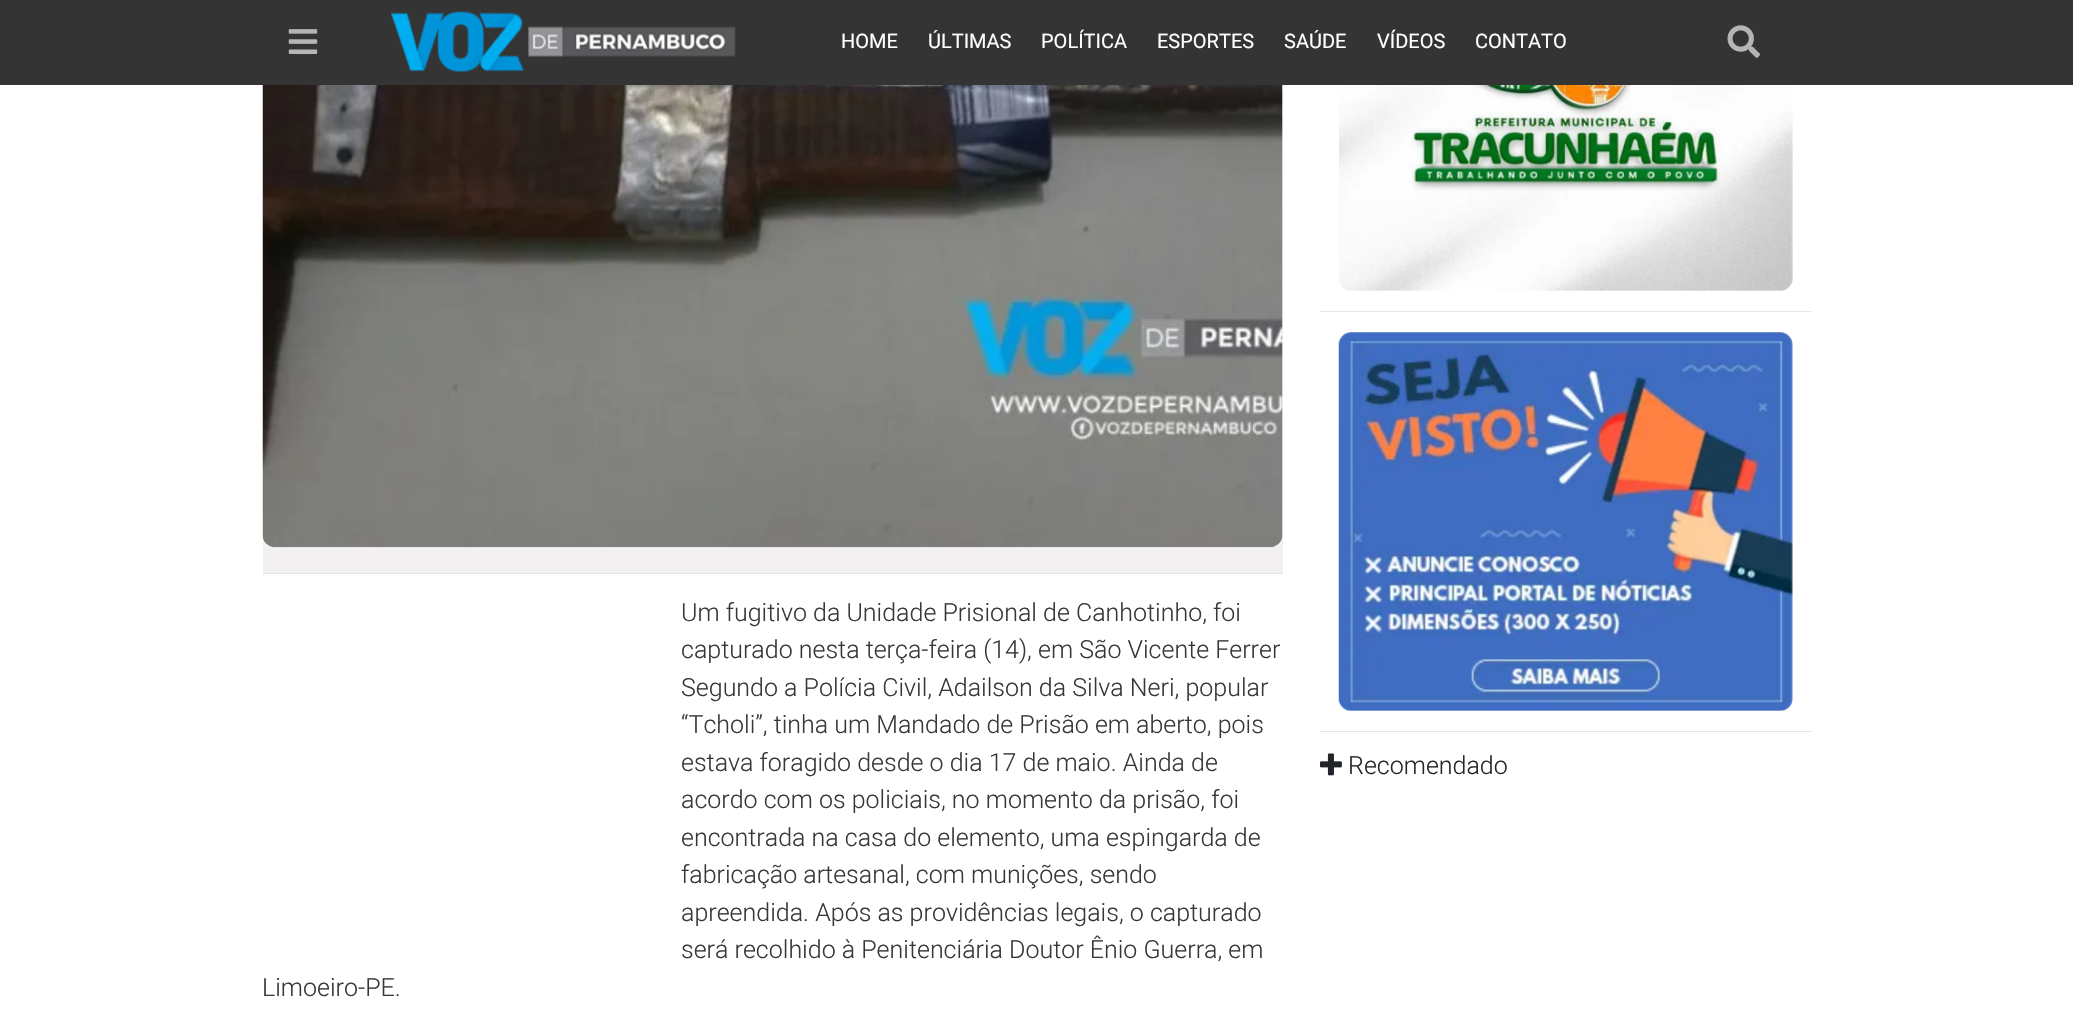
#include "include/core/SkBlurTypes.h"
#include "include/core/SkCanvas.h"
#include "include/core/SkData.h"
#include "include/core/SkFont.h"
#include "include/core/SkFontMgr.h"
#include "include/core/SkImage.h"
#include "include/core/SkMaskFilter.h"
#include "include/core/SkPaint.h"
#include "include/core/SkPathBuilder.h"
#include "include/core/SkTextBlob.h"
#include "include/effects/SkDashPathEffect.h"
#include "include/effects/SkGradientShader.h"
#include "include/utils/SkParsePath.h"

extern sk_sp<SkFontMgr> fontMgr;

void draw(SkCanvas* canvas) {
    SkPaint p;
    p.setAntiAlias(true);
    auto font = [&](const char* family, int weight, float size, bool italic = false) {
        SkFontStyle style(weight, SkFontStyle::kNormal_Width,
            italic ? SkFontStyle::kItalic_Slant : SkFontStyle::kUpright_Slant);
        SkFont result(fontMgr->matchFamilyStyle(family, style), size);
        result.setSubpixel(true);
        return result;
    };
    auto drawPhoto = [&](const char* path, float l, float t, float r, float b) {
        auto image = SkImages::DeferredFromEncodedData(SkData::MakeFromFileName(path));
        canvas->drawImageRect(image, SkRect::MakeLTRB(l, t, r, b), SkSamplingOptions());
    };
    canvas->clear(0xFFFFFFFF);
    p.setColor(0xFF343434);
    canvas->drawRect(SkRect::MakeLTRB(0, 0, 2073, 85), p);
    drawPhoto("media/1.png", 288, 29, 318, 54);
    drawPhoto("media/2.png", 391, 11, 736, 72);
    auto font1 = font("Roboto", 400, 20);
    p.setColor(0xFFFFFFFF);
    {
        const struct { const char* s; float x, y; } items[] = {
            {"HOME", 841, 48},
            {"ÚLTIMAS", 928, 48},
            {"POLÍTICA", 1041, 48},
            {"ESPORTES", 1157, 48},
            {"SAÚDE", 1284, 48},
            {"VÍDEOS", 1377, 48},
            {"CONTATO", 1475, 48},
        };
        for (auto [s, x, y] : items) {
            canvas->drawString(s, x, y, font1, p);
        }
    }
    drawPhoto("media/3.png", 1727, 25, 1760, 58);
    p.setColor(0xFFF2F0F0);
    canvas->drawRect(SkRect::MakeLTRB(263, 85, 1283, 573), p);
    p.setColor(0xFFE6E6E6);
    canvas->drawRect(SkRect::MakeLTRB(263, 573, 1283, 574), p);
    drawPhoto("media/4.png", 262, 85, 1283, 548);
    auto font2 = font("Roboto", 300, 25);
    p.setColor(0xFF373737);
    {
        const struct { const char* s; float x, y; } items[] = {
            {"Um fugitivo da Unidade Prisional de Canhotinho, foi", 681, 621},
            {"capturado nesta terça-feira (14), em São Vicente Ferrer", 681, 658},
            {"Segundo a Polícia Civil, Adailson da Silva Neri, popular", 681, 696},
            {"“Tcholi”, tinha um Mandado de Prisão em aberto, pois", 681, 733},
            {"estava foragido desde o dia 17 de maio. Ainda de", 681, 771},
            {"acordo com os policiais, no momento da prisão, foi", 681, 808},
            {"encontrada na casa do elemento, uma espingarda de", 681, 846},
            {"fabricação artesanal, com munições, sendo", 681, 883},
            {"apreendida. Após as providências legais, o capturado", 681, 921},
            {"será recolhido à Penitenciária Doutor Ênio Guerra, em", 681, 958},
            {"Limoeiro-PE.", 262, 996},
        };
        for (auto [s, x, y] : items) {
            canvas->drawString(s, x, y, font2, p);
        }
    }
    drawPhoto("media/5.png", 1339, 85, 1793, 291);
    p.setColor(0xFFE6E6E6);
    canvas->drawRect(SkRect::MakeLTRB(1320, 311, 1811, 312), p);
    drawPhoto("media/6.png", 1338, 332, 1793, 711);
    canvas->drawRect(SkRect::MakeLTRB(1320, 731, 1811, 732), p);
    drawPhoto("media/7.png", 1320, 753, 1342, 776);
    p.setColor(0xFF212529);
    canvas->drawString("Recomendado", 1348, 774, font2, p);
}
